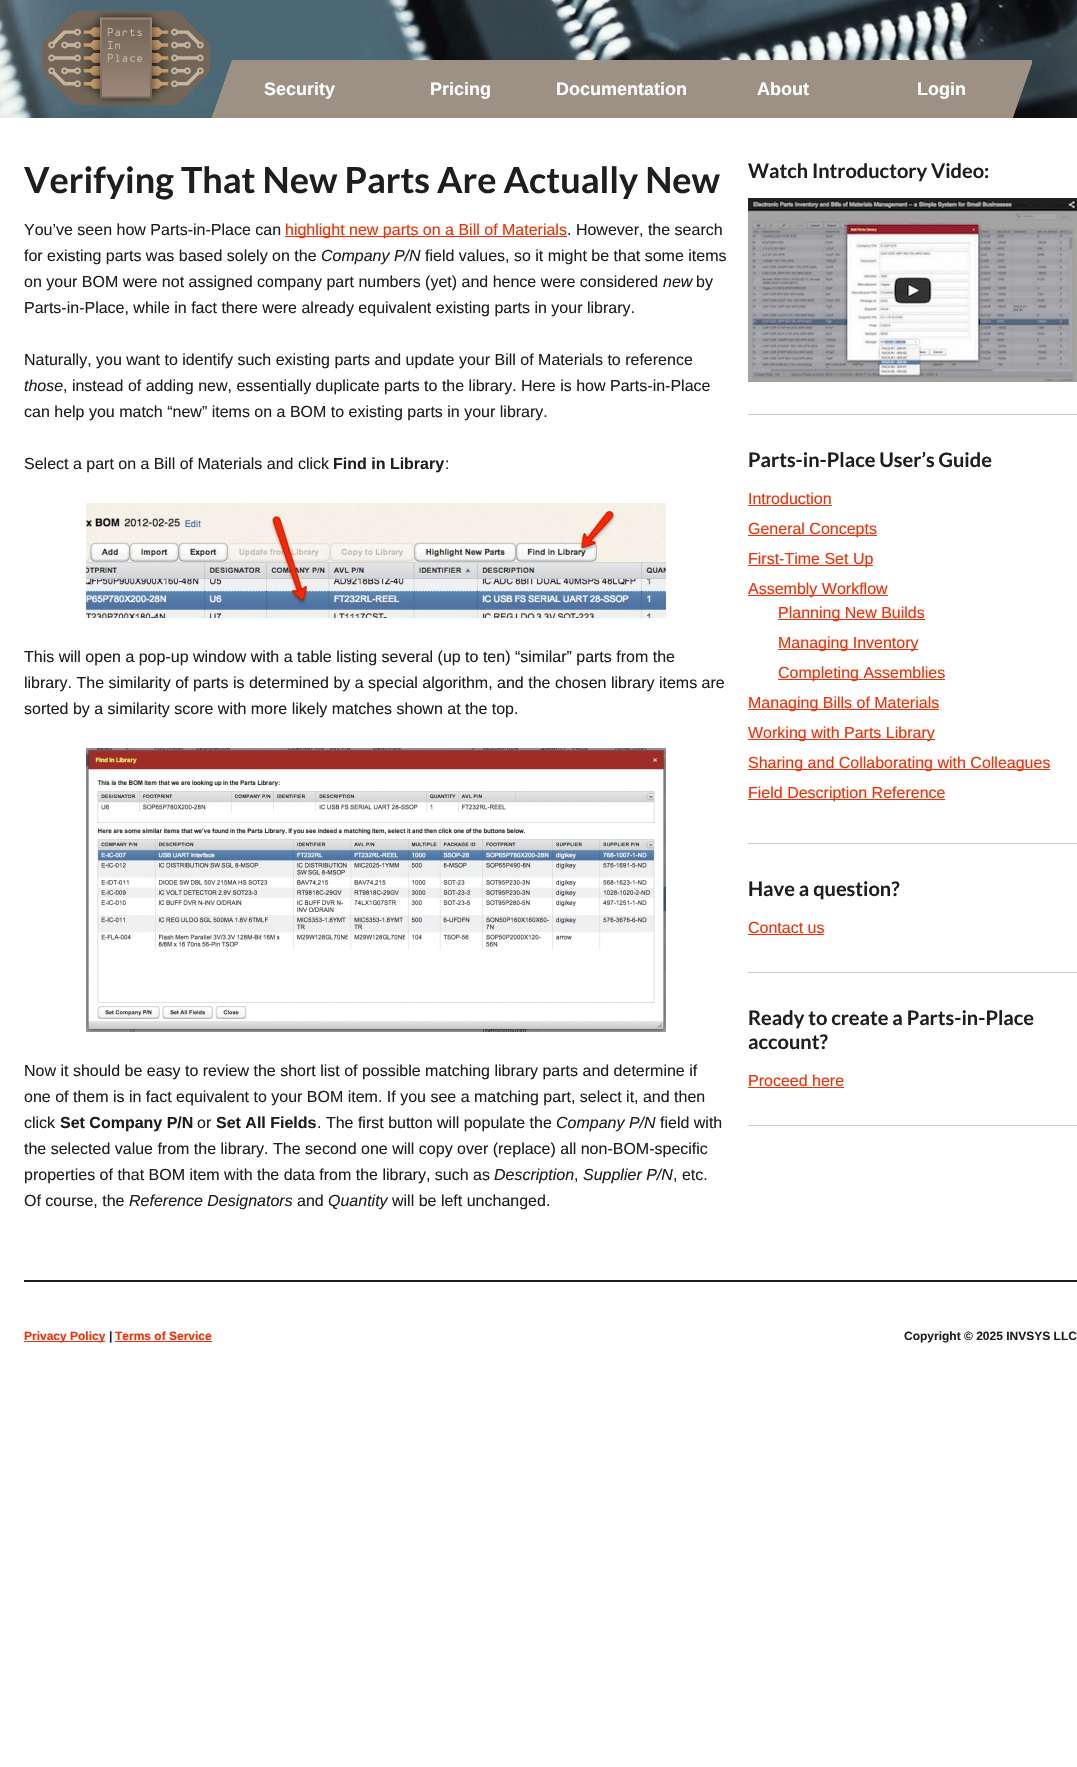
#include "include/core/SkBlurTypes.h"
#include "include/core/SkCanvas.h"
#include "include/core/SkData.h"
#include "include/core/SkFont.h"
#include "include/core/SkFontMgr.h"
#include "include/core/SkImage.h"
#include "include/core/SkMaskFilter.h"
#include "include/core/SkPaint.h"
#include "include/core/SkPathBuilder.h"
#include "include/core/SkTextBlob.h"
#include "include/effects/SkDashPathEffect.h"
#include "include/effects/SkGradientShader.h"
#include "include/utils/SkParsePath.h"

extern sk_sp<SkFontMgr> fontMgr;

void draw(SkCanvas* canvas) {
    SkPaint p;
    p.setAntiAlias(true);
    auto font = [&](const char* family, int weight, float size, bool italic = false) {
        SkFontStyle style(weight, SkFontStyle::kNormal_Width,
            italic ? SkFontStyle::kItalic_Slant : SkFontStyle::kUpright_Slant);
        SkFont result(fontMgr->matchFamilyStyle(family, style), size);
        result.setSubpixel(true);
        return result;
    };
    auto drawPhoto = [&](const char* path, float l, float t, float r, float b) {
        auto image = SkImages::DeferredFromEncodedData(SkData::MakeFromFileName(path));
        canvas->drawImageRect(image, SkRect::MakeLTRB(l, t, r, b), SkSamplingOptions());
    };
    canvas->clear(0xFFFFFFFF);
    drawPhoto("media/1.png", 0, 0, 1077, 118);
    drawPhoto("media/2.png", 42, 11, 210, 105);
    drawPhoto("media/3.png", 211, 60, 1032, 118);
    auto font1 = font("Liberation Sans", 700, 18);
    p.setColor(0xFFFFFFFF);
    {
        const struct { const char* s; float x, y; } items[] = {
            {"Security", 264, 95},
            {"Pricing", 430, 95},
            {"Documentation", 556, 95},
            {"About", 757, 95},
            {"Login", 917, 95},
        };
        for (auto [s, x, y] : items) {
            canvas->drawString(s, x, y, font1, p);
        }
    }
    auto font2 = font("Lato", 700, 36);
    p.setColor(0xFF1E1E1E);
    canvas->drawString("Verifying That New Parts Are Actually New", 24, 193, font2, p);
    auto font3 = font("Liberation Sans", 400, 16);
    canvas->drawString("You’ve seen how Parts-in-Place can", 24, 235, font3, p);
    p.setColor(0xFFFF2A00);
    canvas->drawRect(SkRect::MakeLTRB(285, 236, 567, 237), p);
    canvas->drawString("highlight new parts on a Bill of Materials", 285, 235, font3, p);
    p.setColor(0xFF1E1E1E);
    canvas->drawString(". However, the search", 567, 235, font3, p);
    canvas->drawString("for existing parts was based solely on the", 24, 261, font3, p);
    auto font4 = font("Liberation Sans", 400, 16, true);
    canvas->drawString("Company P/N", 321, 261, font4, p);
    canvas->drawString("field values, so it might be that some items", 425, 261, font3, p);
    canvas->drawString("on your BOM were not assigned company part numbers (yet) and hence were considered", 24, 287, font3, p);
    canvas->drawString("new", 663, 287, font4, p);
    {
        const struct { const char* s; float x, y; } items[] = {
            {"by", 696, 287},
            {"Parts-in-Place, while in fact there were already equivalent existing parts in your library.", 24, 313},
            {"Naturally, you want to identify such existing parts and update your Bill of Materials to reference", 24, 365},
        };
        for (auto [s, x, y] : items) {
            canvas->drawString(s, x, y, font3, p);
        }
    }
    canvas->drawString("those", 24, 391, font4, p);
    {
        const struct { const char* s; float x, y; } items[] = {
            {", instead of adding new, essentially duplicate parts to the library. Here is how Parts-in-Place", 63, 391},
            {"can help you match “new” items on a BOM to existing parts in your library.", 24, 417},
            {"Select a part on a Bill of Materials and click", 24, 469},
        };
        for (auto [s, x, y] : items) {
            canvas->drawString(s, x, y, font3, p);
        }
    }
    auto font5 = font("Liberation Sans", 700, 16);
    canvas->drawString("Find in Library", 333, 469, font5, p);
    canvas->drawString(":", 445, 469, font3, p);
    drawPhoto("media/4.png", 86, 503, 666, 618);
    {
        const struct { const char* s; float x, y; } items[] = {
            {"This will open a pop-up window with a table listing several (up to ten) “similar” parts from the", 24, 662},
            {"library. The similarity of parts is determined by a special algorithm, and the chosen library items are", 24, 688},
            {"sorted by a similarity score with more likely matches shown at the top.", 24, 714},
        };
        for (auto [s, x, y] : items) {
            canvas->drawString(s, x, y, font3, p);
        }
    }
    drawPhoto("media/5.png", 86, 748, 666, 1032);
    {
        const struct { const char* s; float x, y; } items[] = {
            {"Now it should be easy to review the short list of possible matching library parts and determine if", 24, 1076},
            {"one of them is in fact equivalent to your BOM item. If you see a matching part, select it, and then", 24, 1102},
            {"click", 24, 1128},
        };
        for (auto [s, x, y] : items) {
            canvas->drawString(s, x, y, font3, p);
        }
    }
    canvas->drawString("Set Company P/N", 60, 1128, font5, p);
    canvas->drawString("or", 197, 1128, font3, p);
    canvas->drawString("Set All Fields", 216, 1128, font5, p);
    canvas->drawString(". The first button will populate the", 317, 1128, font3, p);
    canvas->drawString("Company P/N", 556, 1128, font4, p);
    {
        const struct { const char* s; float x, y; } items[] = {
            {"field with", 660, 1128},
            {"the selected value from the library. The second one will copy over (replace) all non-BOM-specific", 24, 1154},
            {"properties of that BOM item with the data from the library, such as", 24, 1180},
        };
        for (auto [s, x, y] : items) {
            canvas->drawString(s, x, y, font3, p);
        }
    }
    canvas->drawString("Description", 494, 1180, font4, p);
    canvas->drawString(",", 574, 1180, font3, p);
    canvas->drawString("Supplier P/N", 583, 1180, font4, p);
    canvas->drawString(", etc.", 673, 1180, font3, p);
    canvas->drawString("Of course, the", 24, 1206, font3, p);
    canvas->drawString("Reference Designators", 129, 1206, font4, p);
    canvas->drawString("and", 297, 1206, font3, p);
    canvas->drawString("Quantity", 328, 1206, font4, p);
    canvas->drawString("will be left unchanged.", 392, 1206, font3, p);
    p.setColor(0xFFCCCCCC);
    canvas->drawRect(SkRect::MakeLTRB(748, 414, 1077, 415), p);
    auto font6 = font("Lato", 700, 20);
    p.setColor(0xFF1E1E1E);
    canvas->drawString("Watch Introductory Video:", 748, 178, font6, p);
    drawPhoto("media/6.png", 748, 198, 1077, 382);
    p.setColor(0xFFCCCCCC);
    canvas->drawRect(SkRect::MakeLTRB(748, 843, 1077, 844), p);
    p.setColor(0xFF1E1E1E);
    canvas->drawString("Parts-in-Place User’s Guide", 748, 467, font6, p);
    p.setColor(0xFFFF2A00);
    canvas->drawString("Introduction", 748, 504, font3, p);
    canvas->drawRect(SkRect::MakeLTRB(748, 505, 832, 506), p);
    canvas->drawRect(SkRect::MakeLTRB(748, 535, 877, 536), p);
    canvas->drawString("General Concepts", 748, 534, font3, p);
    canvas->drawRect(SkRect::MakeLTRB(748, 565, 873, 566), p);
    canvas->drawString("First-Time Set Up", 748, 564, font3, p);
    canvas->drawRect(SkRect::MakeLTRB(748, 595, 888, 596), p);
    canvas->drawString("Assembly Workflow", 748, 594, font3, p);
    canvas->drawRect(SkRect::MakeLTRB(778, 619, 925, 620), p);
    canvas->drawString("Planning New Builds", 778, 618, font3, p);
    canvas->drawRect(SkRect::MakeLTRB(778, 649, 918, 650), p);
    canvas->drawString("Managing Inventory", 778, 648, font3, p);
    canvas->drawRect(SkRect::MakeLTRB(778, 679, 945, 680), p);
    canvas->drawString("Completing Assemblies", 778, 678, font3, p);
    canvas->drawRect(SkRect::MakeLTRB(748, 709, 939, 710), p);
    canvas->drawString("Managing Bills of Materials", 748, 708, font3, p);
    canvas->drawRect(SkRect::MakeLTRB(748, 739, 935, 740), p);
    canvas->drawString("Working with Parts Library", 748, 738, font3, p);
    canvas->drawRect(SkRect::MakeLTRB(748, 769, 1050, 770), p);
    canvas->drawString("Sharing and Collaborating with Colleagues", 748, 768, font3, p);
    canvas->drawRect(SkRect::MakeLTRB(748, 799, 945, 800), p);
    canvas->drawString("Field Description Reference", 748, 798, font3, p);
    p.setColor(0xFFCCCCCC);
    canvas->drawRect(SkRect::MakeLTRB(748, 972, 1077, 973), p);
    p.setColor(0xFF1E1E1E);
    canvas->drawString("Have a question?", 748, 896, font6, p);
    p.setColor(0xFFFF2A00);
    canvas->drawString("Contact us", 748, 933, font3, p);
    canvas->drawRect(SkRect::MakeLTRB(748, 934, 824, 935), p);
    p.setColor(0xFFCCCCCC);
    canvas->drawRect(SkRect::MakeLTRB(748, 1125, 1077, 1126), p);
    p.setColor(0xFF1E1E1E);
    canvas->drawString("Ready to create a Parts-in-Place", 748, 1025, font6, p);
    canvas->drawString("account?", 748, 1049, font6, p);
    p.setColor(0xFFFF2A00);
    canvas->drawString("Proceed here", 748, 1086, font3, p);
    {
        const struct { float l, t, r, b; SkColor color; } items[] = {
            {748, 1087, 844, 1088, 0xFFFF2A00},
            {24, 1280, 1077, 1282, 0xFF1E1E1E},
            {24, 1341, 105, 1342, 0xFFFF2A00},
        };
        for (auto [l, t, r, b, color] : items) {
            p.setColor(color);
            canvas->drawRect(SkRect::MakeLTRB(l, t, r, b), p);
        }
    }
    auto font7 = font("Liberation Sans", 700, 12);
    canvas->drawString("Privacy Policy", 24, 1340, font7, p);
    p.setColor(0xFF1E1E1E);
    canvas->drawString("|", 109, 1340, font7, p);
    p.setColor(0xFFFF2A00);
    canvas->drawString("Terms of Service", 115, 1340, font7, p);
    canvas->drawRect(SkRect::MakeLTRB(115, 1341, 212, 1342), p);
    p.setColor(0xFF1E1E1E);
    canvas->drawString("Copyright © 2025 INVSYS LLC", 904, 1340, font7, p);
}
